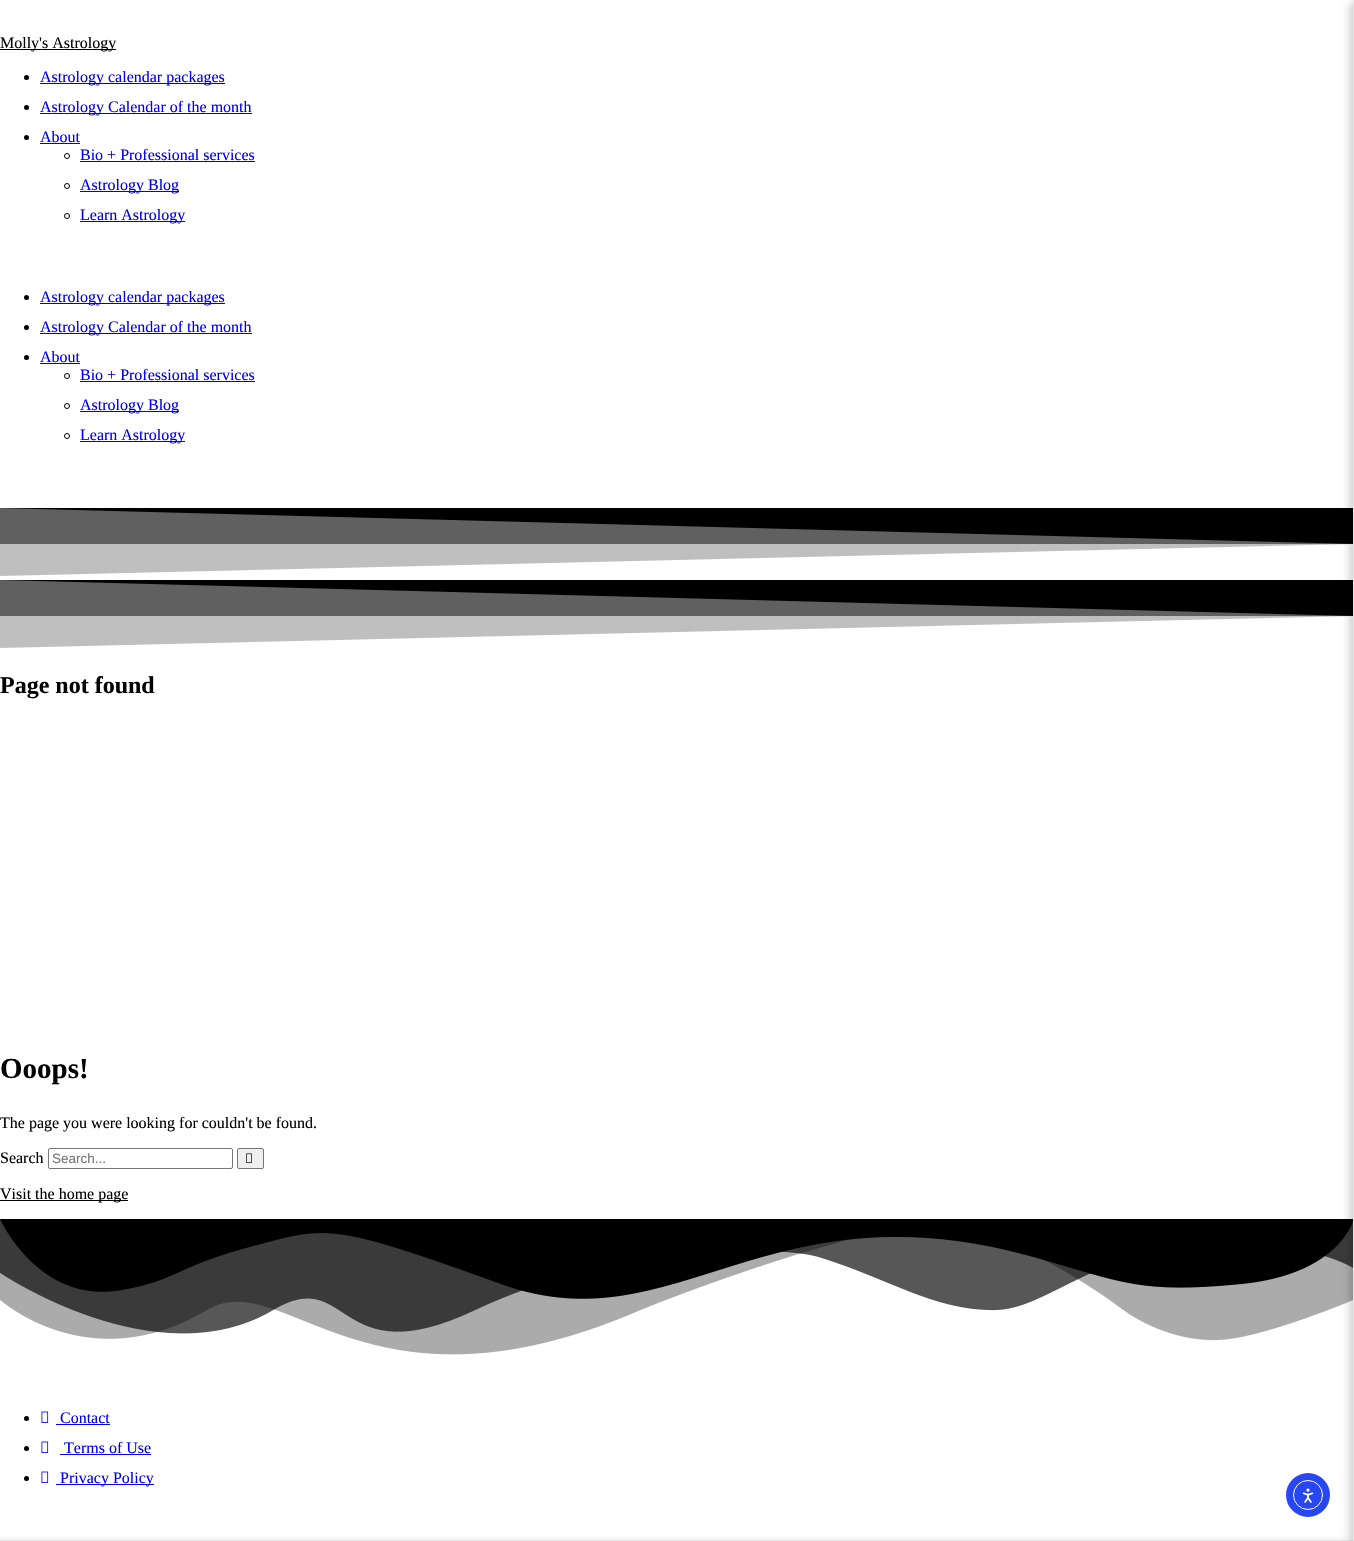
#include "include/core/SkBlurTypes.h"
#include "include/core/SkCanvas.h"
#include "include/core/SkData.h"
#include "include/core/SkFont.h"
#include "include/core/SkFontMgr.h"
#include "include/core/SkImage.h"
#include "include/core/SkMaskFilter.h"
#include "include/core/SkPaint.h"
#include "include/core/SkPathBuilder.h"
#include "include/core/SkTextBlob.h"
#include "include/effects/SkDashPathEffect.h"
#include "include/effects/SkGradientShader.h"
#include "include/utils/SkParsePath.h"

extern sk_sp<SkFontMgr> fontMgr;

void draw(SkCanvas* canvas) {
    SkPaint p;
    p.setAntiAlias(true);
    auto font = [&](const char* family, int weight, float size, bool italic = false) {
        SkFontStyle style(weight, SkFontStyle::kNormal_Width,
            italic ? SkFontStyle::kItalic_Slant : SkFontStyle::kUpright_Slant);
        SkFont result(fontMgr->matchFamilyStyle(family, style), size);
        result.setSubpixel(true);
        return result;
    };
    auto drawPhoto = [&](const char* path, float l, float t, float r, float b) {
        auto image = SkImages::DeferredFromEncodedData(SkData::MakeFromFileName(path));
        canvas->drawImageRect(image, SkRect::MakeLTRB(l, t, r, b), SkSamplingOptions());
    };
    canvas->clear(0xFFFFFFFF);
    {
        const struct { float l, t, r, b; SkColor color; } items[] = {
            {0, 580, 1353, 616, 0xFF808080},
            {0, 508, 1353, 544, 0xFF808080},
            {0, 49, 116, 50, 0xFF000000},
        };
        for (auto [l, t, r, b, color] : items) {
            p.setColor(color);
            canvas->drawRect(SkRect::MakeLTRB(l, t, r, b), p);
        }
    }
    auto font1 = font("Liberation Serif", 400, 16);
    canvas->drawString("Molly's Astrology", 0, 48, font1, p);
    canvas->drawCircle(26.5f, 77.5f, 2.5f, p);
    p.setColor(0xFF0000EE);
    canvas->drawRect(SkRect::MakeLTRB(40, 83, 225, 84), p);
    canvas->drawString("Astrology calendar packages", 40, 82, font1, p);
    p.setColor(0xFF000000);
    canvas->drawCircle(26.5f, 107.5f, 2.5f, p);
    p.setColor(0xFF0000EE);
    canvas->drawRect(SkRect::MakeLTRB(40, 113, 252, 114), p);
    canvas->drawString("Astrology Calendar of the month", 40, 112, font1, p);
    p.setColor(0xFF000000);
    canvas->drawCircle(26.5f, 137.5f, 2.5f, p);
    p.setColor(0xFF0000EE);
    canvas->drawString("About", 40, 142, font1, p);
    canvas->drawRect(SkRect::MakeLTRB(40, 143, 80, 144), p);
    p.setStyle(SkPaint::kStroke_Style);
    p.setStrokeWidth(1);
    p.setColor(0xFF000000);
    canvas->drawCircle(67, 156, 2.5f, p);
    p.setStyle(SkPaint::kFill_Style);
    p.setColor(0xFF0000EE);
    canvas->drawString("Bio + Professional services", 80, 160, font1, p);
    canvas->drawRect(SkRect::MakeLTRB(80, 161, 255, 162), p);
    p.setStyle(SkPaint::kStroke_Style);
    p.setColor(0xFF000000);
    canvas->drawCircle(67, 186, 2.5f, p);
    p.setStyle(SkPaint::kFill_Style);
    p.setColor(0xFF0000EE);
    canvas->drawRect(SkRect::MakeLTRB(80, 191, 179, 192), p);
    canvas->drawString("Astrology Blog", 80, 190, font1, p);
    p.setStyle(SkPaint::kStroke_Style);
    p.setColor(0xFF000000);
    canvas->drawCircle(67, 216, 2.5f, p);
    p.setStyle(SkPaint::kFill_Style);
    p.setColor(0xFF0000EE);
    canvas->drawRect(SkRect::MakeLTRB(80, 221, 185, 222), p);
    canvas->drawString("Learn Astrology", 80, 220, font1, p);
    p.setColor(0xFF000000);
    canvas->drawCircle(26.5f, 297.5f, 2.5f, p);
    p.setColor(0xFF0000EE);
    canvas->drawRect(SkRect::MakeLTRB(40, 303, 225, 304), p);
    canvas->drawString("Astrology calendar packages", 40, 302, font1, p);
    p.setColor(0xFF000000);
    canvas->drawCircle(26.5f, 327.5f, 2.5f, p);
    p.setColor(0xFF0000EE);
    canvas->drawRect(SkRect::MakeLTRB(40, 333, 252, 334), p);
    canvas->drawString("Astrology Calendar of the month", 40, 332, font1, p);
    p.setColor(0xFF000000);
    canvas->drawCircle(26.5f, 357.5f, 2.5f, p);
    p.setColor(0xFF0000EE);
    canvas->drawString("About", 40, 362, font1, p);
    canvas->drawRect(SkRect::MakeLTRB(40, 363, 80, 364), p);
    p.setStyle(SkPaint::kStroke_Style);
    p.setColor(0xFF000000);
    canvas->drawCircle(67, 376, 2.5f, p);
    p.setStyle(SkPaint::kFill_Style);
    p.setColor(0xFF0000EE);
    canvas->drawString("Bio + Professional services", 80, 380, font1, p);
    canvas->drawRect(SkRect::MakeLTRB(80, 381, 255, 382), p);
    p.setStyle(SkPaint::kStroke_Style);
    p.setColor(0xFF000000);
    canvas->drawCircle(67, 406, 2.5f, p);
    p.setStyle(SkPaint::kFill_Style);
    p.setColor(0xFF0000EE);
    canvas->drawRect(SkRect::MakeLTRB(80, 411, 179, 412), p);
    canvas->drawString("Astrology Blog", 80, 410, font1, p);
    p.setStyle(SkPaint::kStroke_Style);
    p.setColor(0xFF000000);
    canvas->drawCircle(67, 436, 2.5f, p);
    p.setStyle(SkPaint::kFill_Style);
    p.setColor(0xFF0000EE);
    canvas->drawRect(SkRect::MakeLTRB(80, 441, 185, 442), p);
    canvas->drawString("Learn Astrology", 80, 440, font1, p);
    p.setColor(0xFF000000);
    canvas->drawPath(SkPathBuilder().moveTo(0, 508).lineTo(1354, 508).lineTo(1354, 544).close().detach(), p);
    p.setColor(0x40000000);
    canvas->drawPath(SkPathBuilder().moveTo(1354, 508).lineTo(0, 508).lineTo(0, 576).lineTo(1354, 544).close().detach(), p);
    p.setColor(0xFF000000);
    canvas->drawPath(SkPathBuilder().moveTo(0, 580).lineTo(1354, 580).lineTo(1354, 616).close().detach(), p);
    p.setColor(0x40000000);
    canvas->drawPath(SkPathBuilder().moveTo(1354, 580).lineTo(0, 580).lineTo(0, 648).lineTo(1354, 616).close().detach(), p);
    auto font2 = font("Liberation Serif", 700, 24);
    p.setColor(0xFF000000);
    canvas->drawString("Page not found", 0, 693, font2, p);
    auto font3 = font("Liberation Serif", 700, 29);
    canvas->drawString("Ooops!", 0, 1078, font3, p);
    canvas->drawString("The page you were looking for couldn't be found.", 0, 1128, font1, p);
    canvas->drawString("Search", 0, 1163, font1, p);
    p.setStyle(SkPaint::kStroke_Style);
    p.setColor(0xFF767676);
    canvas->drawRoundRect(SkRect::MakeLTRB(48.5f, 1148.5f, 232.5f, 1168.5f), 1.5f, 1.5f, p);
    auto font4 = font("Liberation Sans", 400, 13.5f);
    p.setStyle(SkPaint::kFill_Style);
    p.setColor(0xFF757575);
    canvas->drawString("Search...", 52, 1163, font4, p);
    p.setColor(0xFFEFEFEF);
    canvas->drawRoundRect(SkRect::MakeLTRB(237.5f, 1148.5f, 263.5f, 1168.5f), 1.5f, 1.5f, p);
    p.setStyle(SkPaint::kStroke_Style);
    p.setColor(0xFF767676);
    canvas->drawRoundRect(SkRect::MakeLTRB(237.5f, 1148.5f, 263.5f, 1168.5f), 1.5f, 1.5f, p);
    drawPhoto("media/1.png", 246, 1153, 252, 1163);
    p.setStyle(SkPaint::kFill_Style);
    p.setColor(0xFF000000);
    canvas->drawRect(SkRect::MakeLTRB(0, 1200, 128, 1201), p);
    canvas->drawString("Visit the home page", 0, 1199, font1, p);
    drawPhoto("media/2.png", 0, 1219, 1353, 1355);
    canvas->drawCircle(26.5f, 1418.5f, 2.5f, p);
    drawPhoto("media/3.png", 41, 1411, 49, 1423);
    p.setColor(0xFF0000EE);
    canvas->drawRect(SkRect::MakeLTRB(56, 1424, 110, 1425), p);
    canvas->drawString("Contact", 60, 1423, font1, p);
    p.setColor(0xFF000000);
    canvas->drawCircle(26.5f, 1448.5f, 2.5f, p);
    drawPhoto("media/3.png", 41, 1441, 49, 1453);
    p.setColor(0xFF0000EE);
    canvas->drawRect(SkRect::MakeLTRB(60, 1454, 151, 1455), p);
    canvas->drawString("Terms of Use", 64, 1453, font1, p);
    p.setColor(0xFF000000);
    canvas->drawCircle(26.5f, 1478.5f, 2.5f, p);
    drawPhoto("media/3.png", 41, 1471, 49, 1483);
    p.setColor(0xFF0000EE);
    canvas->drawRect(SkRect::MakeLTRB(56, 1484, 154, 1485), p);
    canvas->drawString("Privacy Policy", 60, 1483, font1, p);
    p.setColor(0x33000000);
    p.setMaskFilter(SkMaskFilter::MakeBlur(kNormal_SkBlurStyle, 4.5f));
    canvas->drawRect(SkRect::MakeLTRB(-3, 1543, 1353, 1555), p);
    p.setMaskFilter(nullptr);
    p.setColor(0xFFE6E6E6);
    canvas->drawRect(SkRect::MakeLTRB(0, 1540, 1354, 1541), p);
    p.setColor(0x33000000);
    p.setMaskFilter(SkMaskFilter::MakeBlur(kNormal_SkBlurStyle, 4.5f));
    canvas->drawRect(SkRect::MakeLTRB(1350, 3, 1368, 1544), p);
    p.setMaskFilter(nullptr);
    p.setColor(0xFFE6E6E6);
    canvas->drawRect(SkRect::MakeLTRB(1353, 0, 1354, 1541), p);
    p.setColor(0xFF2847F3);
    canvas->drawCircle(1308, 1495, 22, p);
    p.setStyle(SkPaint::kStroke_Style);
    p.setColor(0xFFFFFFFF);
    canvas->drawCircle(1308, 1495, 14.5f, p);
    drawPhoto("media/4.png", 1302, 1488, 1314, 1503);
}
